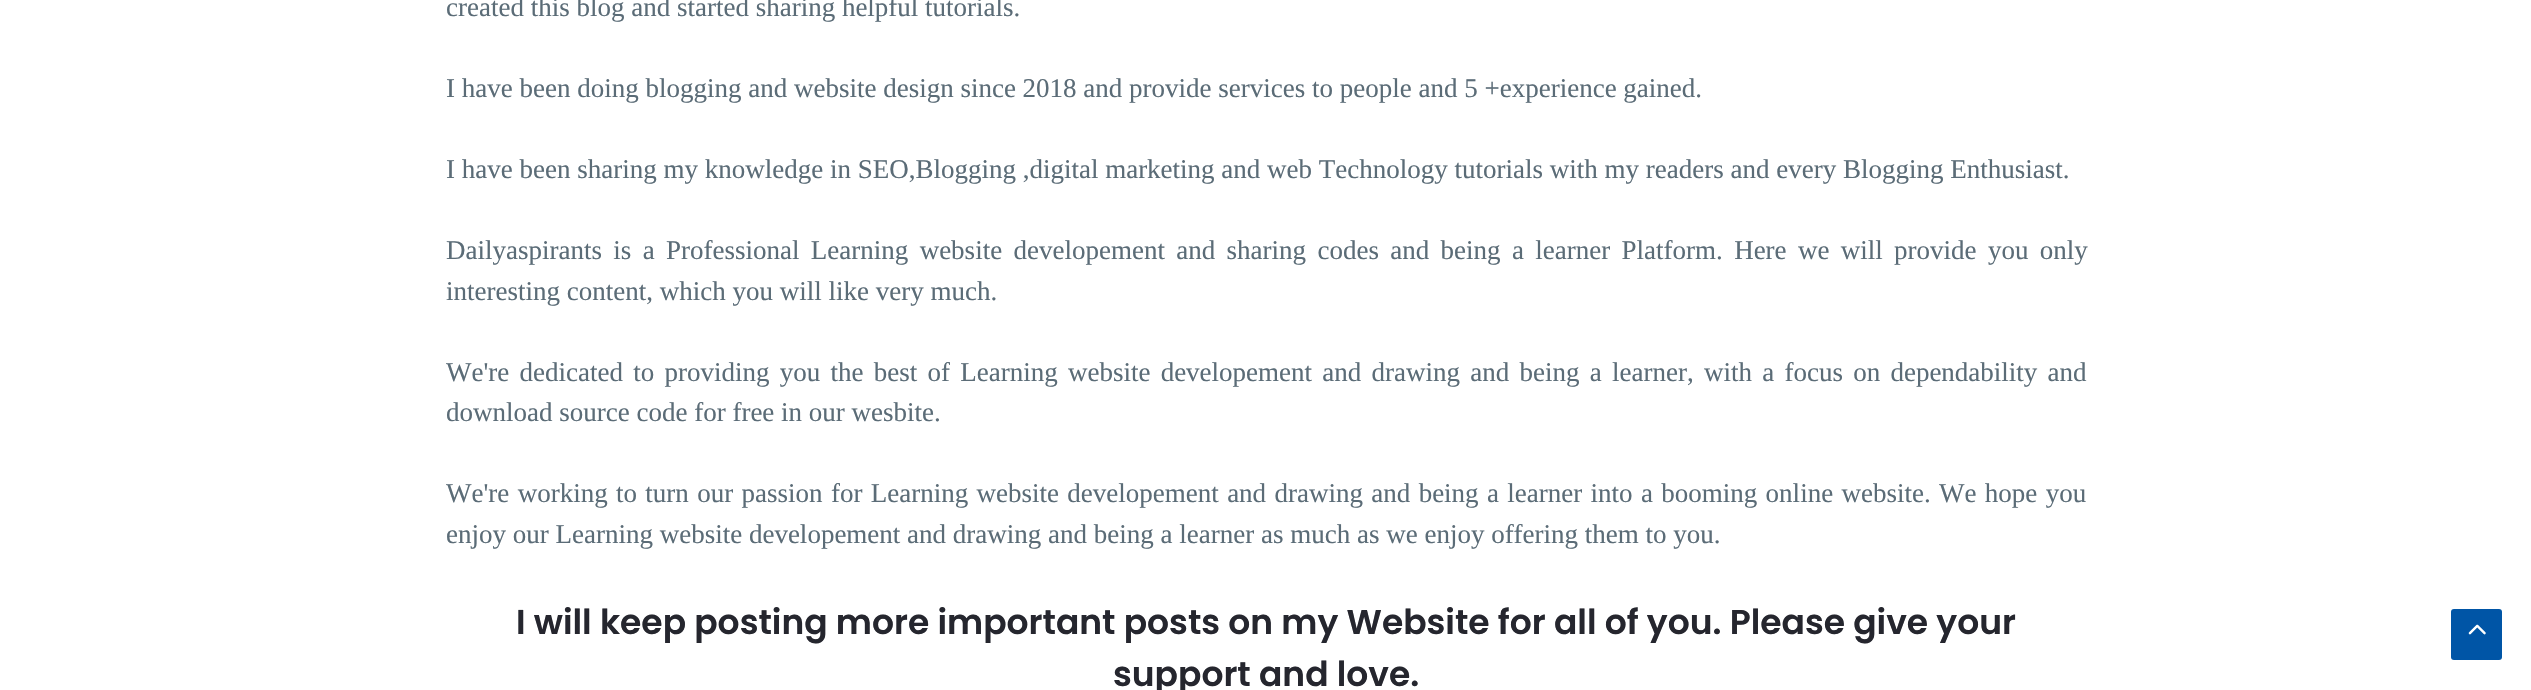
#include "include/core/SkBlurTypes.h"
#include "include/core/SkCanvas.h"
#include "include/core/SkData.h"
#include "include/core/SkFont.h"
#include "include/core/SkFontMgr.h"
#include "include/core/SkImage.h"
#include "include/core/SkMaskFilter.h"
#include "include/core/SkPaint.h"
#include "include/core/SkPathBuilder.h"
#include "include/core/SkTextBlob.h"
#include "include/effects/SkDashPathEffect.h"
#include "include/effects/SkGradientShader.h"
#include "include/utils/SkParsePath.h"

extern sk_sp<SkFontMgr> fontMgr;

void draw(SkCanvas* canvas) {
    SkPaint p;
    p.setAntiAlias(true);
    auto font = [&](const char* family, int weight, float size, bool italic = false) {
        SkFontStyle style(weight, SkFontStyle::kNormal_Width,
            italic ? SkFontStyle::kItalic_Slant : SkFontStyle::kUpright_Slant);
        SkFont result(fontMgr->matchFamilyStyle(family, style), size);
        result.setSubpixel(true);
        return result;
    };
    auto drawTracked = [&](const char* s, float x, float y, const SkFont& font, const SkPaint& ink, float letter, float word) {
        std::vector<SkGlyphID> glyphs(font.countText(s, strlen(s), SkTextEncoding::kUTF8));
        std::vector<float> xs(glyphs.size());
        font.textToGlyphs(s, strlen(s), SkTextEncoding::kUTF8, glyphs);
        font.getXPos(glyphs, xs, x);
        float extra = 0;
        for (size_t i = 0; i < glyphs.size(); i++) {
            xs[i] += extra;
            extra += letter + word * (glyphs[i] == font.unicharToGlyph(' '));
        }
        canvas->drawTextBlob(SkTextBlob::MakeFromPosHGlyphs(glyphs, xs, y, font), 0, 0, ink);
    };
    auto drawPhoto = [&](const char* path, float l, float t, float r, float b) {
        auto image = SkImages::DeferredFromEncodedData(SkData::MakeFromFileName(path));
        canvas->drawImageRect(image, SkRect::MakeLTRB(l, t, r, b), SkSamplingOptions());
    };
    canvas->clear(0xFFFFFFFF);
    auto font1 = font("Liberation Serif", 400, 27);
    p.setColor(0xFF5B6C77);
    {
        const struct { const char* s; float x, y; } items[] = {
            {"created this blog and started sharing helpful tutorials.", 446, 16},
            {"I have been doing blogging and website design since 2018 and provide services to people and 5 +experience gained.", 446, 97},
            {"I have been sharing my knowledge in SEO,Blogging ,digital marketing and web Technology tutorials with my readers and every Blogging Enthusiast.", 446, 178},
        };
        for (auto [s, x, y] : items) {
            canvas->drawString(s, x, y, font1, p);
        }
    }
    drawTracked("Dailyaspirants is a Professional Learning website developement and sharing codes and being a learner Platform. Here we will provide you only", 446, 259, font1, p, 0, 4.6f);
    canvas->drawString("interesting content, which you will like very much.", 446, 300, font1, p);
    drawTracked("We're dedicated to providing you the best of Learning website developement and drawing and being a learner, with a focus on dependability and", 446, 381, font1, p, 0, 3.5f);
    canvas->drawString("download source code for free in our wesbite.", 446, 421, font1, p);
    drawTracked("We're working to turn our passion for Learning website developement and drawing and being a learner into a booming online website. We hope you", 446, 502, font1, p, 0, 1.6f);
    canvas->drawString("enjoy our Learning website developement and drawing and being a learner as much as we enjoy offering them to you.", 446, 543, font1, p);
    auto font2 = font("Poppins", 600, 34.5f);
    p.setColor(0xFF25262E);
    canvas->drawString("I will keep posting more important posts on my Website for all of you. Please give your", 516, 634, font2, p);
    canvas->drawString("support and love.", 1113, 686, font2, p);
    p.setColor(0xFF0055A6);
    canvas->drawRoundRect(SkRect::MakeLTRB(2451, 609, 2502, 660), 3, 3, p);
    drawPhoto("media/1.png", 2468, 624, 2486, 635);
}
